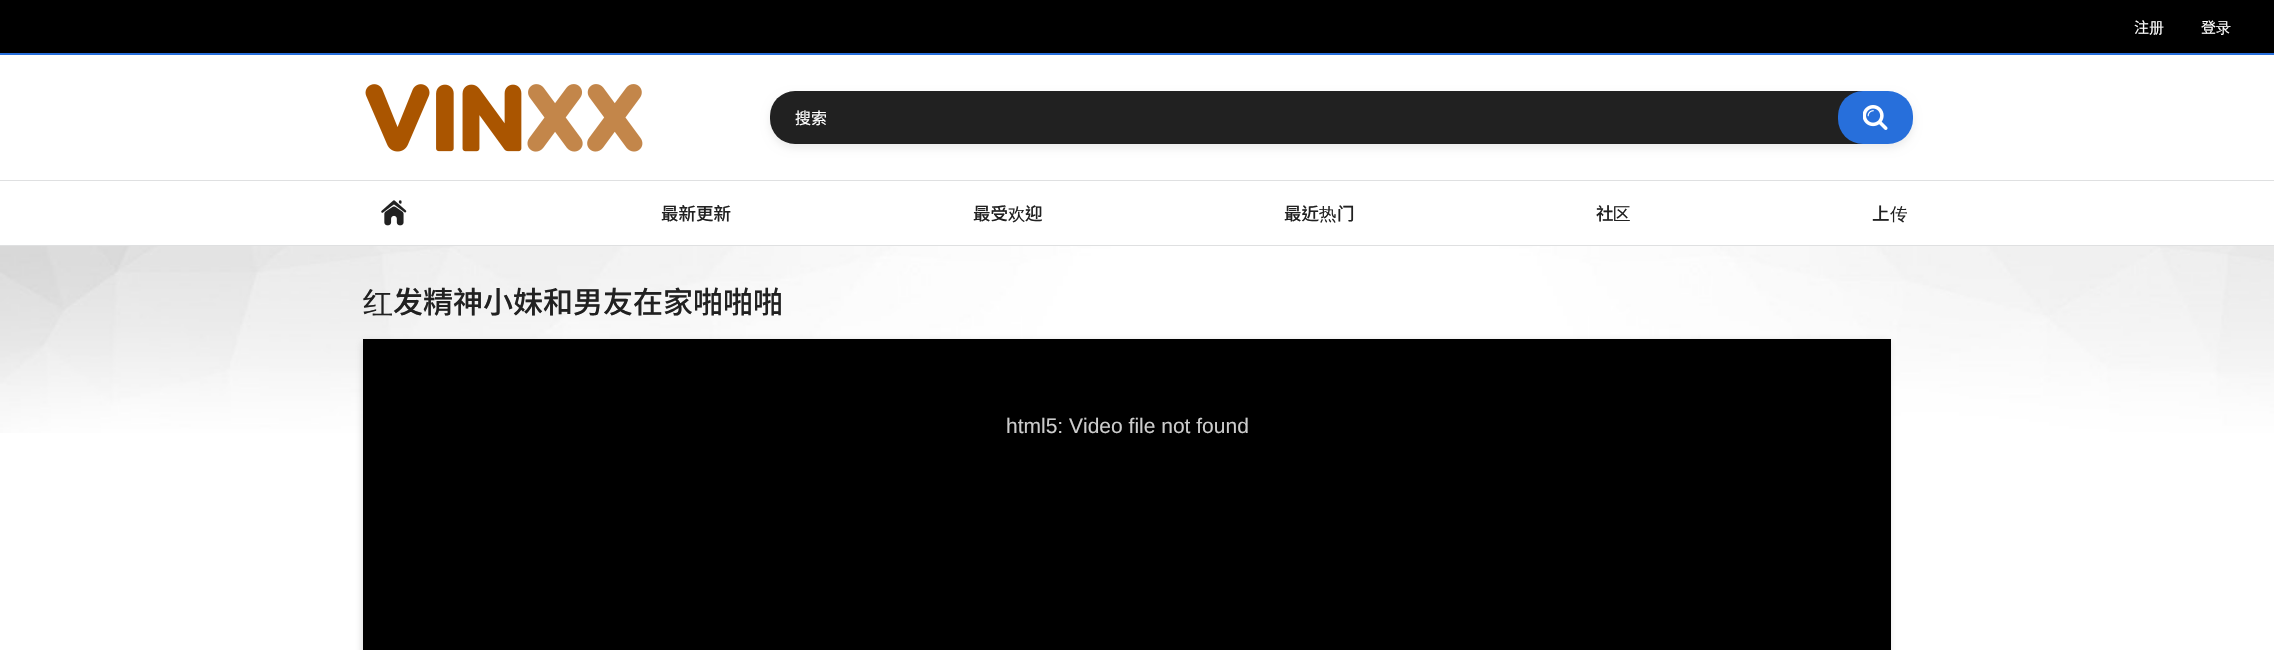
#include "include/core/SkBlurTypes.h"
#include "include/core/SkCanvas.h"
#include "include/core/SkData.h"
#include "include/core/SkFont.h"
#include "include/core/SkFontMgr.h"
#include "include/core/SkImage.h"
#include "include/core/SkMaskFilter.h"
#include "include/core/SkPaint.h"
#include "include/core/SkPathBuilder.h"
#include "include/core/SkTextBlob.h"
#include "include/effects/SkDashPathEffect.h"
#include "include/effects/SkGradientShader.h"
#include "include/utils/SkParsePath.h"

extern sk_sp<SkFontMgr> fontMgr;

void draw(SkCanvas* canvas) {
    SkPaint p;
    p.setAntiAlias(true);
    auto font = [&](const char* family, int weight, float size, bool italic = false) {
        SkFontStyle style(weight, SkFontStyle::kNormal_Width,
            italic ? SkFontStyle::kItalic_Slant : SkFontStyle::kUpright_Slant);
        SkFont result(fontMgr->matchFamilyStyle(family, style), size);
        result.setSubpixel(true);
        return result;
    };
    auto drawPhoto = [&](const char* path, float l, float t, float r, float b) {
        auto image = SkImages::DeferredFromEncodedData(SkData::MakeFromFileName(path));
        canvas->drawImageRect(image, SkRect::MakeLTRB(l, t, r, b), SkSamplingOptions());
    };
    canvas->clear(0xFFFFFFFF);
    p.setColor(0xFF000000);
    canvas->drawRect(SkRect::MakeLTRB(0, 0, 2274, 53), p);
    p.setColor(0xFF276FDB);
    canvas->drawRect(SkRect::MakeLTRB(0, 53, 2274, 55), p);
    auto font1 = font("Noto Sans TC", 400, 15);
    p.setColor(0xFFFFFFFF);
    canvas->drawString("注", 2134, 33, font1, p);
    auto font2 = font("WenQuanYi Zen Hei", 500, 15);
    canvas->drawString("册", 2149, 33, font2, p);
    canvas->drawString("登", 2201, 33, font1, p);
    canvas->drawString("录", 2216, 33, font2, p);
    drawPhoto("media/1.png", 0, 246, 2274, 433);
    drawPhoto("media/2.png", 365, 84, 643, 152);
    p.setColor(0x14000000);
    p.setMaskFilter(SkMaskFilter::MakeBlur(kNormal_SkBlurStyle, 4.5f));
    canvas->drawRoundRect(SkRect::MakeLTRB(770, 95, 1913, 148), 25, 25, p);
    p.setMaskFilter(nullptr);
    p.setColor(0xFF212121);
    canvas->drawRoundRect(SkRect::MakeLTRB(770, 91, 1900, 144), 25, 25, p);
    auto font3 = font("Noto Sans TC", 400, 16);
    p.setColor(0xFFFFFFFF);
    canvas->drawString("搜索", 795, 124, font3, p);
    p.setColor(0xFF276FDB);
    canvas->drawRoundRect(SkRect::MakeLTRB(1838, 91, 1913, 144), 25, 25, p);
    drawPhoto("media/3.png", 1863, 105, 1888, 130);
    p.setColor(0xFFDFE0E1);
    canvas->drawRect(SkRect::MakeLTRB(0, 180, 2274, 181), p);
    canvas->drawRect(SkRect::MakeLTRB(0, 245, 2274, 246), p);
    drawPhoto("media/4.png", 381, 200, 407, 226);
    auto font4 = font("Noto Sans TC", 500, 17.5f);
    p.setColor(0xFF212121);
    canvas->drawString("最新更新", 661, 220, font4, p);
    canvas->drawString("最受", 973, 220, font4, p);
    auto font5 = font("WenQuanYi Zen Hei", 500, 17.5f);
    canvas->drawString("欢", 1008, 220, font5, p);
    canvas->drawString("迎", 1025, 220, font4, p);
    canvas->drawString("最近", 1284, 220, font4, p);
    canvas->drawString("热", 1319, 220, font5, p);
    canvas->drawString("门", 1337, 220, font4, p);
    canvas->drawString("社", 1596, 220, font4, p);
    canvas->drawString("区", 1613, 220, font5, p);
    canvas->drawString("上", 1872, 220, font4, p);
    canvas->drawString("传", 1890, 220, font5, p);
    auto font6 = font("WenQuanYi Zen Hei", 500, 30);
    canvas->drawString("红", 363, 313, font6, p);
    auto font7 = font("Noto Sans TC", 500, 30);
    canvas->drawString("发精神小妹和男友在家啪啪啪", 393, 313, font7, p);
    p.setColor(0xA6CFCFCF);
    p.setMaskFilter(SkMaskFilter::MakeBlur(kNormal_SkBlurStyle, 3));
    canvas->drawRoundRect(SkRect::MakeLTRB(361, 340, 1890, 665), 6, 6, p);
    p.setMaskFilter(nullptr);
    p.setColor(0xFF000000);
    canvas->drawRect(SkRect::MakeLTRB(363, 339, 1891, 650), p);
    auto font8 = font("Liberation Sans", 400, 21);
    p.setColor(0xFFCCCCCC);
    canvas->drawString("html5: Video file not found", 1006, 433, font8, p);
}
